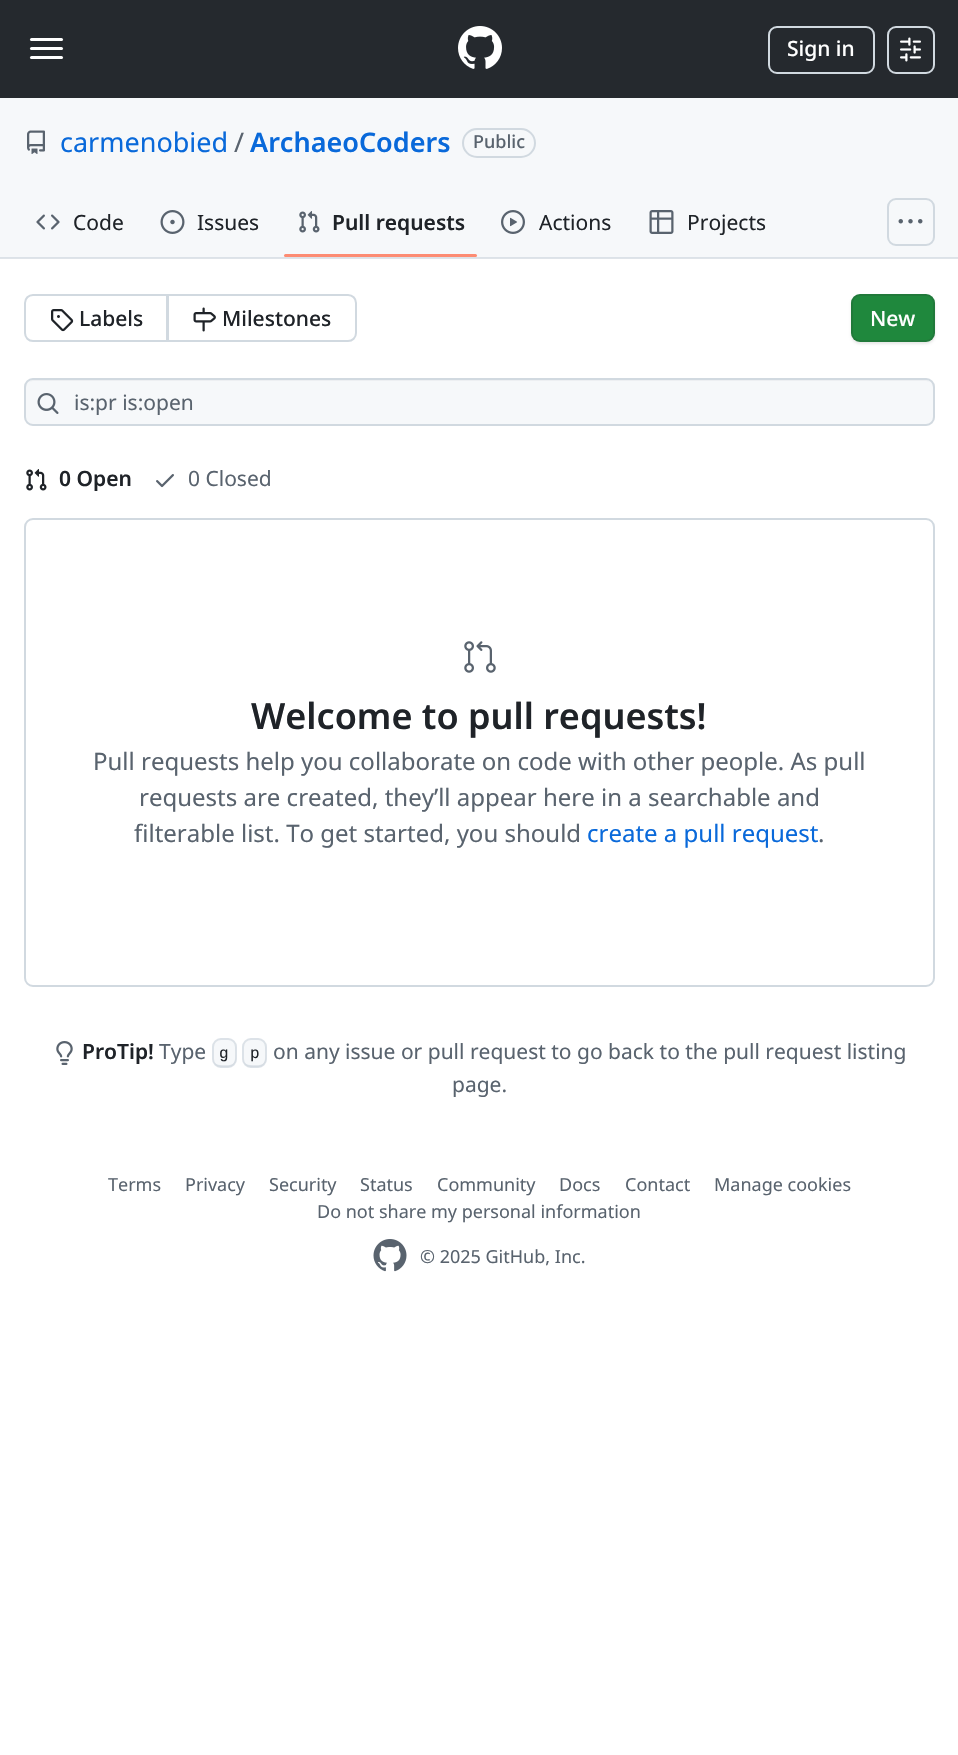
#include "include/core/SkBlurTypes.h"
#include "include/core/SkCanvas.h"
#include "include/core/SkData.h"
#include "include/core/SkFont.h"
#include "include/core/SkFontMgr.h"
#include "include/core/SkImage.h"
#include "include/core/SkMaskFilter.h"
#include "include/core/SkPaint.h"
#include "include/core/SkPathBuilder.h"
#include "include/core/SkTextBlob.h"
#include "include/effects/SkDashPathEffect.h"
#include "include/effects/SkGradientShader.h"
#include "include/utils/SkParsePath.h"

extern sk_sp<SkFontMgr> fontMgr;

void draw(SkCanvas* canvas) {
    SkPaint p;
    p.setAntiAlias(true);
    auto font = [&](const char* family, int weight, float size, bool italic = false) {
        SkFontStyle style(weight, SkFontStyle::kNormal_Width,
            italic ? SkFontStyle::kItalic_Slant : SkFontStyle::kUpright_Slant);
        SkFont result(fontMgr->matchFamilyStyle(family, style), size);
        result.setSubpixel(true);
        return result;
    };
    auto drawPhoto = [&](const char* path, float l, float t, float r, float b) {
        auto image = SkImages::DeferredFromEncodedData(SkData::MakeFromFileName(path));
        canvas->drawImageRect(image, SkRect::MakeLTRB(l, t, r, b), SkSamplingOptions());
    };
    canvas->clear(0xFFFFFFFF);
    p.setColor(0xFFDFE4E9);
    canvas->drawRect(SkRect::MakeLTRB(0, 258, 958, 259), p);
    p.setColor(0xFF25292E);
    canvas->drawRect(SkRect::MakeLTRB(0, 0, 958, 98), p);
    p.setColor(0xFFFFFFFF);
    canvas->drawRoundRect(SkRect::MakeLTRB(30, 38, 63, 41), 1.5f, 1.5f, p);
    canvas->drawRoundRect(SkRect::MakeLTRB(30, 47, 63, 50), 1.5f, 1.5f, p);
    canvas->drawRoundRect(SkRect::MakeLTRB(30, 56, 63, 59), 1.5f, 1.5f, p);
    drawPhoto("media/1.png", 458, 26, 502, 69);
    p.setStyle(SkPaint::kStroke_Style);
    p.setStrokeWidth(2);
    p.setColor(0xFFD1D9E0);
    canvas->drawRoundRect(SkRect::MakeLTRB(769, 27, 874, 73), 8, 8, p);
    auto font1 = font("Noto Sans", 500, 21);
    p.setStyle(SkPaint::kFill_Style);
    p.setColor(0xFFFFFFFF);
    canvas->drawString("Sign in", 787, 56, font1, p);
    p.setStyle(SkPaint::kStroke_Style);
    p.setColor(0xFFD1D9E0);
    canvas->drawRoundRect(SkRect::MakeLTRB(888, 27, 934, 73), 8, 8, p);
    drawPhoto("media/2.png", 900, 37, 921, 62);
    p.setStyle(SkPaint::kFill_Style);
    p.setColor(0xFFF6F8FA);
    canvas->drawRect(SkRect::MakeLTRB(0, 98, 958, 257), p);
    p.setColor(0xFFDCE2E8);
    canvas->drawRect(SkRect::MakeLTRB(0, 257, 958, 258), p);
    drawPhoto("media/3.png", 27, 130, 45, 154);
    auto font2 = font("Noto Sans", 400, 27);
    p.setColor(0xFF0969DA);
    canvas->drawString("carmenobied", 60, 152, font2, p);
    p.setColor(0xFF59636E);
    canvas->drawString("/", 234, 152, font2, p);
    auto font3 = font("Noto Sans", 600, 27);
    p.setColor(0xFF0969DA);
    canvas->drawString("ArchaeoCoders", 250, 152, font3, p);
    p.setStyle(SkPaint::kStroke_Style);
    p.setColor(0xFFD1D9E0);
    canvas->drawRoundRect(SkRect::MakeLTRB(463, 129, 535, 157), 14, 14, p);
    auto font4 = font("Noto Sans", 500, 18);
    p.setStyle(SkPaint::kFill_Style);
    p.setColor(0xFF59636E);
    canvas->drawString("Public", 473, 148, font4, p);
    drawPhoto("media/4.png", 36, 214, 60, 230);
    auto font5 = font("Noto Sans", 400, 21);
    p.setColor(0xFF1F2328);
    canvas->drawString("Code", 73, 230, font5, p);
    drawPhoto("media/5.png", 160, 210, 185, 234);
    canvas->drawString("Issues", 197, 230, font5, p);
    drawPhoto("media/6.png", 299, 211, 320, 233);
    auto font6 = font("Noto Sans", 600, 21);
    canvas->drawString("Pull requests", 332, 230, font6, p);
    p.setColor(0xFFFD8C73);
    canvas->drawRoundRect(SkRect::MakeLTRB(284, 254, 477, 257), 1.5f, 1.5f, p);
    drawPhoto("media/7.png", 501, 210, 525, 234);
    p.setColor(0xFF1F2328);
    canvas->drawString("Actions", 539, 230, font5, p);
    drawPhoto("media/8.png", 649, 210, 674, 234);
    canvas->drawString("Projects", 687, 230, font5, p);
    p.setStyle(SkPaint::kStroke_Style);
    p.setColor(0xFFD1D9E0);
    canvas->drawRoundRect(SkRect::MakeLTRB(888, 199, 934, 245), 8, 8, p);
    drawPhoto("media/9.png", 898, 219, 923, 224);
    canvas->drawPath(SkPathBuilder().moveTo(33, 295).lineTo(167, 295).lineTo(167, 341).lineTo(33, 341).cubicTo(28.5f, 341, 25, 337.5f, 25, 333).lineTo(25, 303).cubicTo(25, 298.5f, 28.5f, 295, 33, 295).close().detach(), p);
    drawPhoto("media/10.png", 51, 309, 74, 332);
    p.setStyle(SkPaint::kFill_Style);
    p.setColor(0xFF1F2328);
    canvas->drawString("Labels", 79, 326, font1, p);
    p.setStyle(SkPaint::kStroke_Style);
    p.setColor(0xFFD1D9E0);
    canvas->drawPath(SkPathBuilder().moveTo(168, 295).lineTo(348, 295).cubicTo(352.5f, 295, 356, 298.5f, 356, 303).lineTo(356, 333).cubicTo(356, 337.5f, 352.5f, 341, 348, 341).lineTo(168, 341).close().detach(), p);
    drawPhoto("media/11.png", 193, 307, 216, 332);
    p.setStyle(SkPaint::kFill_Style);
    p.setColor(0xFF1F2328);
    canvas->drawString("Milestones", 222, 326, font1, p);
    p.setColor(0x0F1F2328);
    p.setMaskFilter(SkMaskFilter::MakeBlur(kNormal_SkBlurStyle, 2));
    canvas->drawRoundRect(SkRect::MakeLTRB(851, 296, 935, 344), 9, 9, p);
    p.setMaskFilter(nullptr);
    p.setMaskFilter(SkMaskFilter::MakeBlur(kNormal_SkBlurStyle, 1));
    canvas->drawRoundRect(SkRect::MakeLTRB(851, 296, 935, 344), 9, 9, p);
    p.setMaskFilter(nullptr);
    p.setColor(0xFF1F883D);
    canvas->drawRoundRect(SkRect::MakeLTRB(851, 294, 935, 342), 9, 9, p);
    p.setStyle(SkPaint::kStroke_Style);
    p.setColor(0x261F2328);
    canvas->drawRoundRect(SkRect::MakeLTRB(852, 295, 934, 341), 8, 8, p);
    p.setStyle(SkPaint::kFill_Style);
    p.setColor(0xFFFFFFFF);
    canvas->drawString("New", 870, 326, font1, p);
    p.setColor(0xFFF6F8FA);
    canvas->drawRoundRect(SkRect::MakeLTRB(24, 378, 935, 426), 9, 9, p);
    p.setColor(0xFFEDEFF2);
    canvas->drawPath(SkPathBuilder().moveTo(33, 381).lineTo(926, 381).cubicTo(930, 381, 933, 384, 933, 388).cubicTo(933, 384, 929, 380, 925, 380).lineTo(34, 380).cubicTo(30, 380, 26, 384, 26, 388).cubicTo(26, 384, 29, 381, 33, 381).close().detach(), p);
    p.setStyle(SkPaint::kStroke_Style);
    p.setColor(0xFFD1D9E0);
    canvas->drawRoundRect(SkRect::MakeLTRB(25, 379, 934, 425), 8, 8, p);
    drawPhoto("media/12.png", 37, 393, 59, 414);
    p.setStyle(SkPaint::kFill_Style);
    p.setColor(0xFF59636E);
    canvas->drawString("is:pr is:open", 74, 410, font5, p);
    drawPhoto("media/13.png", 26, 469, 47, 491);
    p.setColor(0xFF1F2328);
    canvas->drawString("0 Open", 59, 486, font6, p);
    drawPhoto("media/14.png", 156, 474, 174, 488);
    p.setColor(0xFF59636E);
    canvas->drawString("0 Closed", 188, 486, font5, p);
    p.setStyle(SkPaint::kStroke_Style);
    p.setColor(0xFFD1D9E0);
    canvas->drawRoundRect(SkRect::MakeLTRB(25, 519, 934, 986), 8, 8, p);
    drawPhoto("media/15.png", 464, 641, 496, 673);
    auto font7 = font("Noto Sans", 600, 36);
    p.setStyle(SkPaint::kFill_Style);
    p.setColor(0xFF1F2328);
    canvas->drawString("Welcome to pull requests!", 251, 729, font7, p);
    auto font8 = font("Noto Sans", 400, 24);
    p.setColor(0xFF59636E);
    {
        const struct { const char* s; float x, y; } items[] = {
            {"Pull requests help you collaborate on code with other people. As pull", 93, 770},
            {"requests are created, they’ll appear here in a searchable and", 139, 806},
            {"filterable list. To get started, you should", 134, 842},
        };
        for (auto [s, x, y] : items) {
            canvas->drawString(s, x, y, font8, p);
        }
    }
    p.setColor(0xFF0969DA);
    canvas->drawString("create a pull request", 587, 842, font8, p);
    p.setColor(0xFF59636E);
    canvas->drawString(".", 818, 842, font8, p);
    drawPhoto("media/16.png", 56, 1041, 73, 1065);
    p.setColor(0xFF1F2328);
    canvas->drawString("ProTip!", 82, 1059, font6, p);
    p.setColor(0xFF59636E);
    canvas->drawString("Type", 159, 1059, font5, p);
    p.setColor(0xFFF6F8FA);
    canvas->drawRoundRect(SkRect::MakeLTRB(212, 1038, 237, 1068), 9, 9, p);
    p.setColor(0xFFDCE2E8);
    canvas->drawPath(SkPathBuilder().moveTo(235.5f, 1045.5f).lineTo(236, 1052).cubicTo(236, 1065, 233, 1066, 220, 1065).cubicTo(214.5f, 1065, 213, 1061, 213, 1057).lineTo(213, 1059).cubicTo(213, 1063.5f, 216.5f, 1067, 221, 1067).lineTo(228, 1067).cubicTo(232.5f, 1067, 236, 1063.5f, 236, 1059).lineTo(236, 1048).close().detach(), p);
    p.setStyle(SkPaint::kStroke_Style);
    p.setColor(0xB3D1D9E0);
    canvas->drawRoundRect(SkRect::MakeLTRB(213, 1039, 236, 1067), 8, 8, p);
    auto font9 = font("Liberation Mono", 400, 16);
    p.setStyle(SkPaint::kFill_Style);
    p.setColor(0xFF1F2328);
    canvas->drawString("g", 219, 1058, font9, p);
    p.setColor(0xFFF6F8FA);
    canvas->drawRoundRect(SkRect::MakeLTRB(242, 1038, 267, 1068), 9, 9, p);
    p.setColor(0xFFDCE2E8);
    canvas->drawPath(SkPathBuilder().moveTo(265.5f, 1045.5f).lineTo(266, 1052).cubicTo(266, 1065, 263, 1066, 250, 1065).cubicTo(244.5f, 1065, 243, 1061, 243, 1057).lineTo(243, 1059).cubicTo(243, 1063.5f, 246.5f, 1067, 251, 1067).lineTo(258, 1067).cubicTo(262.5f, 1067, 266, 1063.5f, 266, 1059).lineTo(266, 1048).close().detach(), p);
    p.setStyle(SkPaint::kStroke_Style);
    p.setColor(0xB3D1D9E0);
    canvas->drawRoundRect(SkRect::MakeLTRB(243, 1039, 266, 1067), 8, 8, p);
    p.setStyle(SkPaint::kFill_Style);
    p.setColor(0xFF1F2328);
    canvas->drawString("p", 250, 1058, font9, p);
    p.setColor(0xFF59636E);
    canvas->drawString("on any issue or pull request to go back to the pull request listing", 273, 1059, font5, p);
    canvas->drawString("page.", 452, 1092, font5, p);
    auto font10 = font("Noto Sans", 400, 18);
    {
        const struct { const char* s; float x, y; } items[] = {
            {"Terms", 108, 1191},
            {"Privacy", 185, 1191},
            {"Security", 269, 1191},
            {"Status", 360, 1191},
            {"Community", 437, 1191},
            {"Docs", 559, 1191},
            {"Contact", 625, 1191},
            {"Manage cookies", 714, 1191},
            {"Do not share my personal information", 317, 1218},
        };
        for (auto [s, x, y] : items) {
            canvas->drawString(s, x, y, font10, p);
        }
    }
    drawPhoto("media/17.png", 373, 1239, 407, 1272);
    canvas->drawString("© 2025 GitHub, Inc.", 420, 1263, font10, p);
}
